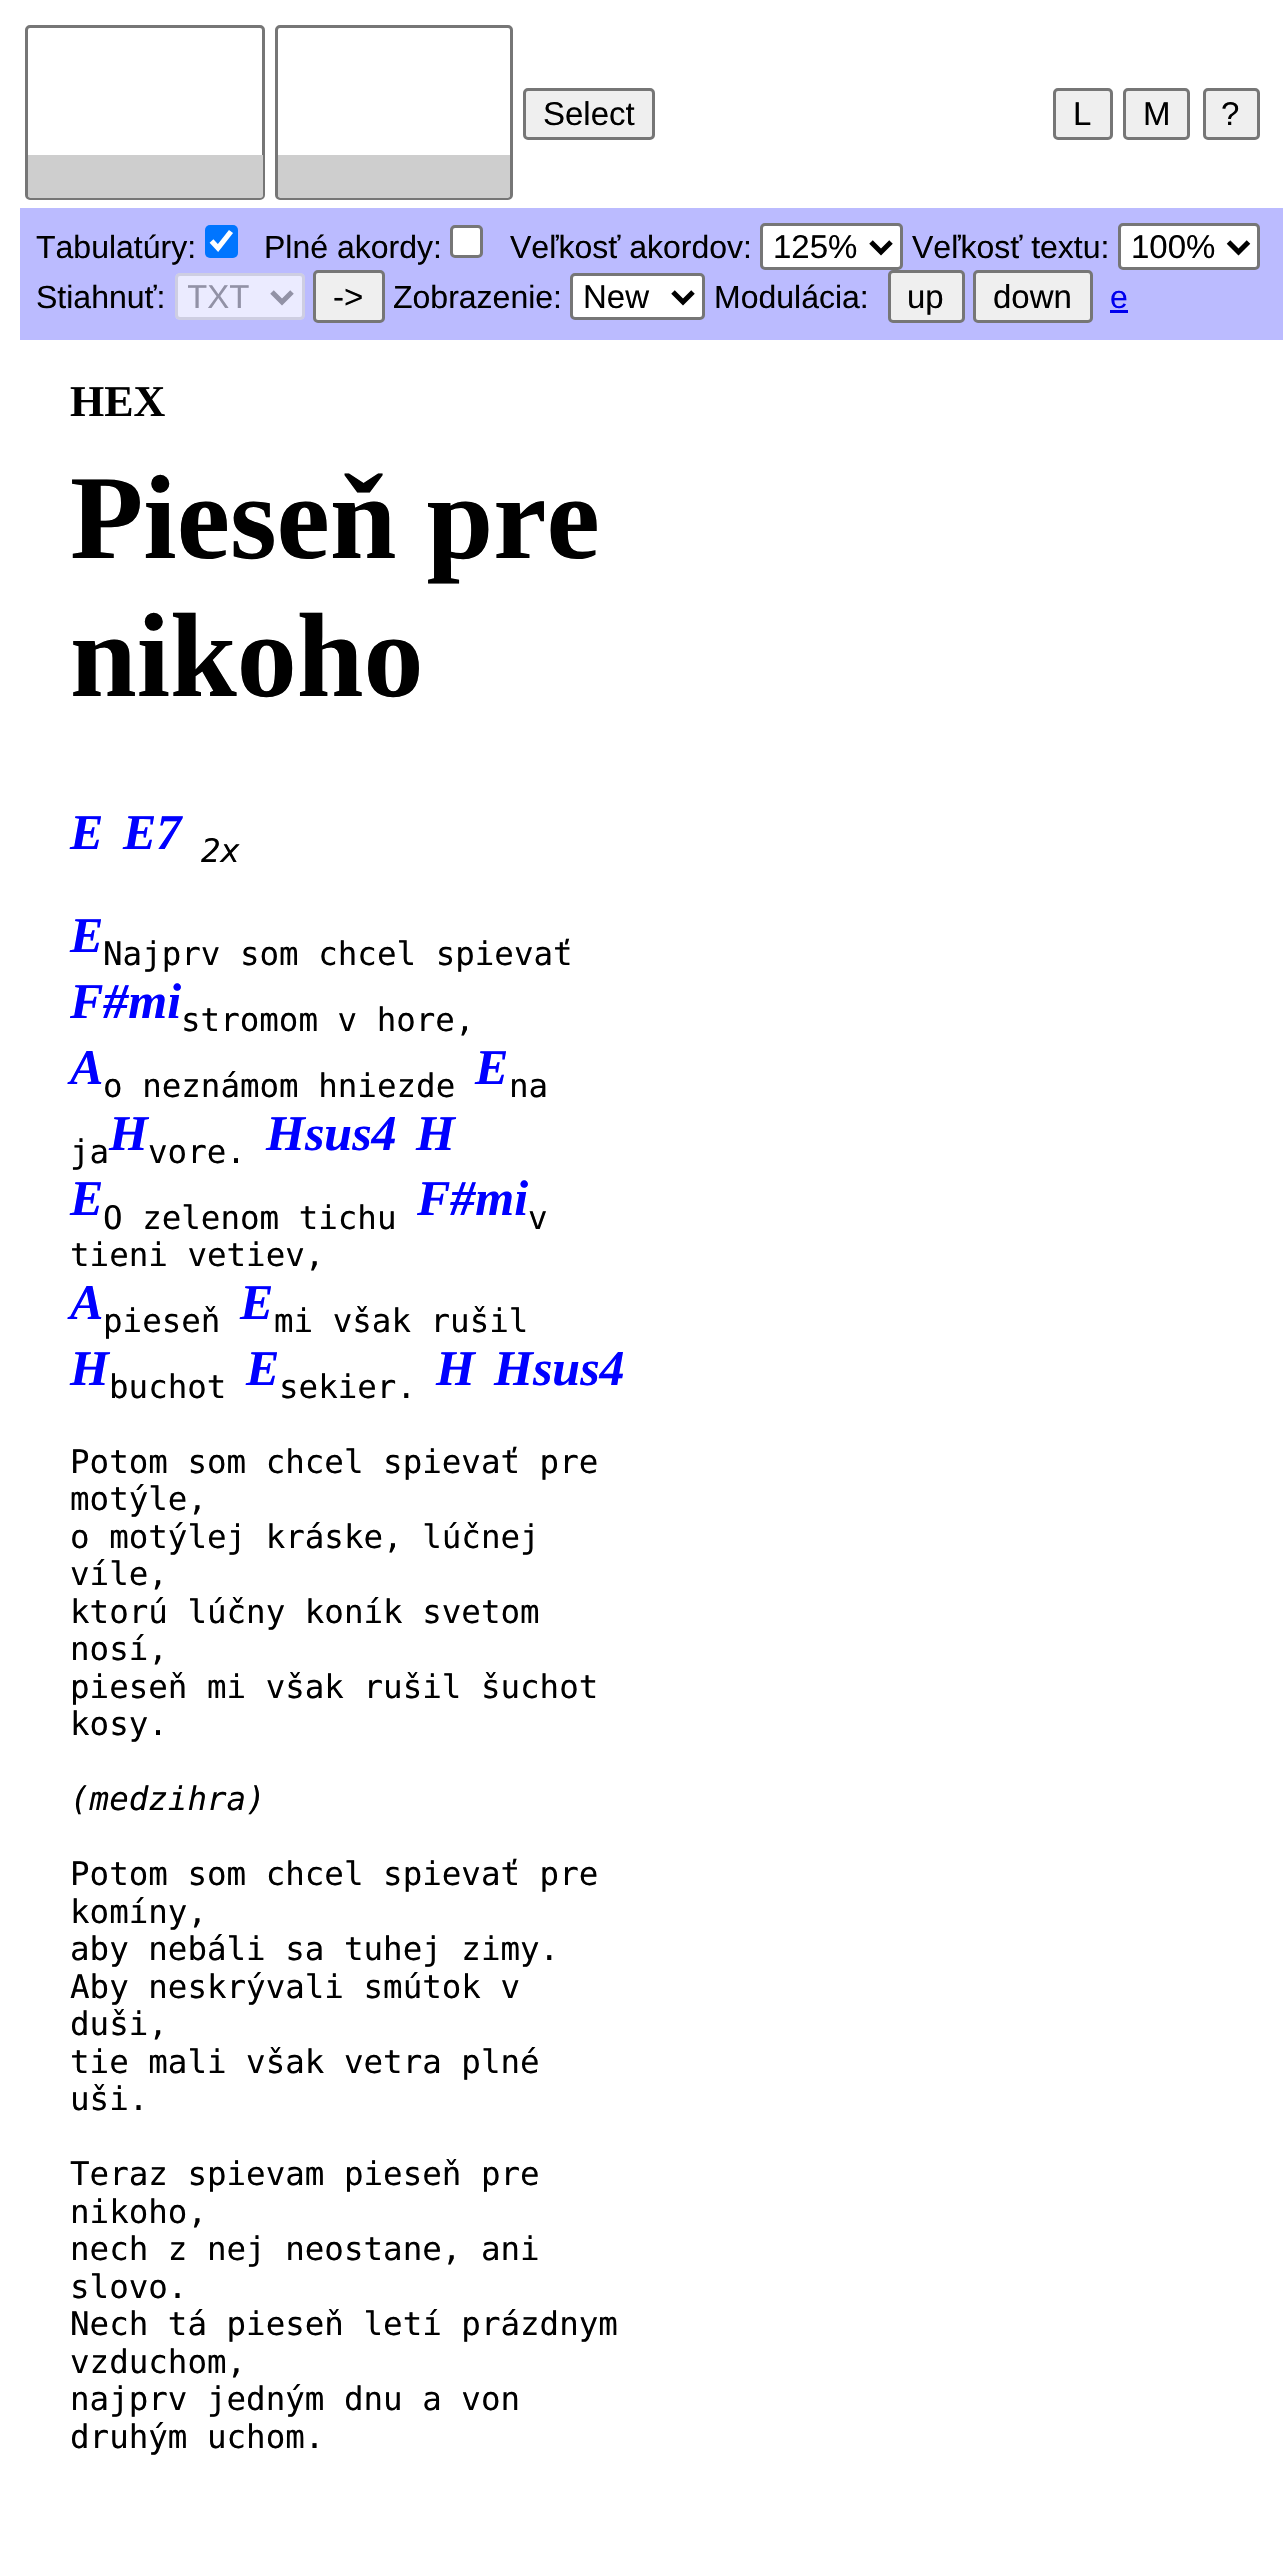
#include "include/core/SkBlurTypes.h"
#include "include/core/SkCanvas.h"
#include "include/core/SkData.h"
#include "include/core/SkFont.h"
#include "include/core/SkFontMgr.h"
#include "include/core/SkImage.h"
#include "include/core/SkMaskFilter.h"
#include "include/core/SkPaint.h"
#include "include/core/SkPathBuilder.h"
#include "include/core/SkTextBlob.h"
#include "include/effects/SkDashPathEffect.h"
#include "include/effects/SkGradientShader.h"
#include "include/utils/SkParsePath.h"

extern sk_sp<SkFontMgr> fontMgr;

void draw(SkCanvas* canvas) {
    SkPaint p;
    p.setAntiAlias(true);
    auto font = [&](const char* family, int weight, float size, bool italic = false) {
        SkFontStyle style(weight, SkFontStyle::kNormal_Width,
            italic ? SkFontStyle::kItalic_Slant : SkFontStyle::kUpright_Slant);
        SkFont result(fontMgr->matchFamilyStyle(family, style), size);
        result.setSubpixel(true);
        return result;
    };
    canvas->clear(0xFFFFFFFF);
    p.setStyle(SkPaint::kStroke_Style);
    p.setStrokeWidth(3);
    p.setColor(0xFF767676);
    canvas->drawRoundRect(SkRect::MakeLTRB(26.5f, 26.5f, 263.5f, 198.5f), 3.5f, 3.5f, p);
    p.setStyle(SkPaint::kFill_Style);
    p.setColor(0xFFCECECE);
    canvas->drawPath(SkPathBuilder().moveTo(28, 155).lineTo(263, 155).lineTo(263, 195.5f).cubicTo(263, 197, 262, 198, 260.5f, 198).lineTo(30.5f, 198).cubicTo(29, 198, 28, 197, 28, 195.5f).close().detach(), p);
    p.setStyle(SkPaint::kStroke_Style);
    p.setColor(0xFF767676);
    canvas->drawRoundRect(SkRect::MakeLTRB(276.5f, 26.5f, 511.5f, 198.5f), 3.5f, 3.5f, p);
    p.setStyle(SkPaint::kFill_Style);
    p.setColor(0xFFCECECE);
    canvas->drawPath(SkPathBuilder().moveTo(278, 155).lineTo(510, 155).lineTo(510, 195.5f).cubicTo(510, 197, 509, 198, 507.5f, 198).lineTo(280.5f, 198).cubicTo(279, 198, 278, 197, 278, 195.5f).close().detach(), p);
    p.setColor(0xFFEFEFEF);
    canvas->drawRoundRect(SkRect::MakeLTRB(524.5f, 89.5f, 653.5f, 138.5f), 3.5f, 3.5f, p);
    p.setStyle(SkPaint::kStroke_Style);
    p.setColor(0xFF767676);
    canvas->drawRoundRect(SkRect::MakeLTRB(524.5f, 89.5f, 653.5f, 138.5f), 3.5f, 3.5f, p);
    auto font1 = font("Liberation Sans", 400, 33);
    p.setStyle(SkPaint::kFill_Style);
    p.setColor(0xFF000000);
    canvas->drawString("Select", 543, 125, font1, p);
    p.setColor(0xFFEFEFEF);
    canvas->drawRoundRect(SkRect::MakeLTRB(1054.5f, 89.5f, 1111.5f, 138.5f), 3.5f, 3.5f, p);
    p.setStyle(SkPaint::kStroke_Style);
    p.setColor(0xFF767676);
    canvas->drawRoundRect(SkRect::MakeLTRB(1054.5f, 89.5f, 1111.5f, 138.5f), 3.5f, 3.5f, p);
    p.setStyle(SkPaint::kFill_Style);
    p.setColor(0xFF000000);
    canvas->drawString("L", 1073, 125, font1, p);
    p.setColor(0xFFEFEFEF);
    canvas->drawRoundRect(SkRect::MakeLTRB(1124.5f, 89.5f, 1188.5f, 138.5f), 3.5f, 3.5f, p);
    p.setStyle(SkPaint::kStroke_Style);
    p.setColor(0xFF767676);
    canvas->drawRoundRect(SkRect::MakeLTRB(1124.5f, 89.5f, 1188.5f, 138.5f), 3.5f, 3.5f, p);
    p.setStyle(SkPaint::kFill_Style);
    p.setColor(0xFF000000);
    canvas->drawString("M", 1143, 125, font1, p);
    p.setColor(0xFFEFEFEF);
    canvas->drawRoundRect(SkRect::MakeLTRB(1204.5f, 89.5f, 1258.5f, 138.5f), 3.5f, 3.5f, p);
    p.setStyle(SkPaint::kStroke_Style);
    p.setColor(0xFF767676);
    canvas->drawRoundRect(SkRect::MakeLTRB(1204.5f, 89.5f, 1258.5f, 138.5f), 3.5f, 3.5f, p);
    p.setStyle(SkPaint::kFill_Style);
    p.setColor(0xFF000000);
    canvas->drawString("?", 1221, 125, font1, p);
    p.setColor(0xFFBBBBFF);
    canvas->drawRect(SkRect::MakeLTRB(20, 208, 1283, 340), p);
    auto font2 = font("Liberation Sans", 400, 32);
    p.setColor(0xFF000000);
    canvas->drawString("Tabulatúry:", 36, 258, font2, p);
    p.setColor(0xFF0075FF);
    canvas->drawRoundRect(SkRect::MakeLTRB(205, 225, 238, 258), 5, 5, p);
    p.setStyle(SkPaint::kStroke_Style);
    p.setStrokeWidth(5.2f);
    p.setColor(0xFFFFFFFF);
    canvas->drawPath(SkPathBuilder().moveTo(211.5f, 241).lineTo(218, 248).lineTo(231, 231.5f).detach(), p);
    p.setStyle(SkPaint::kFill_Style);
    p.setColor(0xFF000000);
    canvas->drawString("Plné akordy:", 264, 258, font2, p);
    p.setColor(0xFFFFFFFF);
    canvas->drawRoundRect(SkRect::MakeLTRB(451.5f, 226.5f, 481.5f, 256.5f), 3.5f, 3.5f, p);
    p.setStyle(SkPaint::kStroke_Style);
    p.setStrokeWidth(3);
    p.setColor(0xFF767676);
    canvas->drawRoundRect(SkRect::MakeLTRB(451.5f, 226.5f, 481.5f, 256.5f), 3.5f, 3.5f, p);
    p.setStyle(SkPaint::kFill_Style);
    p.setColor(0xFF000000);
    canvas->drawString("Veľkosť akordov:", 510, 258, font2, p);
    p.setColor(0xFFFFFFFF);
    canvas->drawRoundRect(SkRect::MakeLTRB(761.5f, 224.5f, 901.5f, 268.5f), 3.5f, 3.5f, p);
    p.setStyle(SkPaint::kStroke_Style);
    p.setColor(0xFF767676);
    canvas->drawRoundRect(SkRect::MakeLTRB(761.5f, 224.5f, 901.5f, 268.5f), 3.5f, 3.5f, p);
    p.setStrokeWidth(5);
    p.setColor(0xFF000000);
    canvas->drawPath(SkPathBuilder().moveTo(871, 242).lineTo(881, 252).lineTo(891, 242).detach(), p);
    p.setStyle(SkPaint::kFill_Style);
    canvas->drawString("125%", 773, 258, font1, p);
    canvas->drawString("Veľkosť textu:", 912, 258, font2, p);
    p.setColor(0xFFFFFFFF);
    canvas->drawRoundRect(SkRect::MakeLTRB(1119.5f, 224.5f, 1258.5f, 268.5f), 3.5f, 3.5f, p);
    p.setStyle(SkPaint::kStroke_Style);
    p.setStrokeWidth(3);
    p.setColor(0xFF767676);
    canvas->drawRoundRect(SkRect::MakeLTRB(1119.5f, 224.5f, 1258.5f, 268.5f), 3.5f, 3.5f, p);
    p.setStrokeWidth(5);
    p.setColor(0xFF000000);
    canvas->drawPath(SkPathBuilder().moveTo(1228.5f, 242).lineTo(1238.5f, 252).lineTo(1248.5f, 242).detach(), p);
    p.setStyle(SkPaint::kFill_Style);
    canvas->drawString("100%", 1131, 258, font1, p);
    canvas->drawString("Stiahnuť:", 36, 308, font2, p);
    p.setColor(0xFFEBEBFF);
    canvas->drawRoundRect(SkRect::MakeLTRB(175, 273, 305, 320), 5, 5, p);
    p.setStyle(SkPaint::kStroke_Style);
    p.setStrokeWidth(3);
    p.setColor(0x4D8B8B9F);
    canvas->drawRoundRect(SkRect::MakeLTRB(176.5f, 274.5f, 303.5f, 318.5f), 3.5f, 3.5f, p);
    p.setStrokeWidth(5);
    p.setColor(0xFF9292A6);
    canvas->drawPath(SkPathBuilder().moveTo(272, 292).lineTo(282, 302).lineTo(292, 292).detach(), p);
    canvas->save();
    canvas->clipRect(SkRect::MakeLTRB(188, 275, 263, 318));
    p.setStyle(SkPaint::kFill_Style);
    canvas->drawString("TXT", 187, 308, font1, p);
    canvas->restore();
    p.setColor(0xFFEFEFEF);
    canvas->drawRoundRect(SkRect::MakeLTRB(314.5f, 271.5f, 383.5f, 321.5f), 3.5f, 3.5f, p);
    p.setStyle(SkPaint::kStroke_Style);
    p.setStrokeWidth(3);
    p.setColor(0xFF767676);
    canvas->drawRoundRect(SkRect::MakeLTRB(314.5f, 271.5f, 383.5f, 321.5f), 3.5f, 3.5f, p);
    p.setStyle(SkPaint::kFill_Style);
    p.setColor(0xFF000000);
    canvas->drawString("->", 333, 308, font1, p);
    canvas->drawString("Zobrazenie:", 393, 308, font2, p);
    p.setColor(0xFFFFFFFF);
    canvas->drawRoundRect(SkRect::MakeLTRB(571.5f, 274.5f, 703.5f, 318.5f), 3.5f, 3.5f, p);
    p.setStyle(SkPaint::kStroke_Style);
    p.setColor(0xFF767676);
    canvas->drawRoundRect(SkRect::MakeLTRB(571.5f, 274.5f, 703.5f, 318.5f), 3.5f, 3.5f, p);
    p.setStrokeWidth(5);
    p.setColor(0xFF000000);
    canvas->drawPath(SkPathBuilder().moveTo(673, 292).lineTo(683, 302).lineTo(693, 292).detach(), p);
    p.setStyle(SkPaint::kFill_Style);
    canvas->drawString("New", 583, 308, font1, p);
    canvas->drawString("Modulácia:", 714, 308, font2, p);
    p.setColor(0xFFEFEFEF);
    canvas->drawRoundRect(SkRect::MakeLTRB(889.5f, 271.5f, 963.5f, 321.5f), 3.5f, 3.5f, p);
    p.setStyle(SkPaint::kStroke_Style);
    p.setStrokeWidth(3);
    p.setColor(0xFF767676);
    canvas->drawRoundRect(SkRect::MakeLTRB(889.5f, 271.5f, 963.5f, 321.5f), 3.5f, 3.5f, p);
    p.setStyle(SkPaint::kFill_Style);
    p.setColor(0xFF000000);
    canvas->drawString("up", 907, 308, font1, p);
    p.setColor(0xFFEFEFEF);
    canvas->drawRoundRect(SkRect::MakeLTRB(974.5f, 271.5f, 1091.5f, 321.5f), 3.5f, 3.5f, p);
    p.setStyle(SkPaint::kStroke_Style);
    p.setColor(0xFF767676);
    canvas->drawRoundRect(SkRect::MakeLTRB(974.5f, 271.5f, 1091.5f, 321.5f), 3.5f, 3.5f, p);
    p.setStyle(SkPaint::kFill_Style);
    p.setColor(0xFF000000);
    canvas->drawString("down", 993, 308, font1, p);
    p.setColor(0xFF0000EE);
    canvas->drawString("e", 1110, 308, font2, p);
    canvas->drawRect(SkRect::MakeLTRB(1110, 310, 1128, 313), p);
    auto font3 = font("Liberation Serif", 700, 44);
    p.setColor(0xFF000000);
    canvas->drawString("HEX", 70, 416, font3, p);
    auto font4 = font("Liberation Serif", 700, 120);
    canvas->drawString("Pieseň pre", 70, 558, font4, p);
    canvas->drawString("nikoho", 70, 696, font4, p);
    auto font5 = font("Liberation Serif", 700, 50, true);
    p.setColor(0xFF0000FF);
    canvas->drawString("E", 70, 849, font5, p);
    canvas->drawString("E7", 123, 849, font5, p);
    auto font6 = font("DejaVu Sans Mono", 400, 32.5f, true);
    p.setColor(0xFF000000);
    canvas->drawString("2x", 201, 862, font6, p);
    p.setColor(0xFF0000FF);
    canvas->drawString("E", 70, 952, font5, p);
    auto font7 = font("DejaVu Sans Mono", 400, 32.5f);
    p.setColor(0xFF000000);
    canvas->drawString("Najprv som chcel spievať", 103, 965, font7, p);
    p.setColor(0xFF0000FF);
    canvas->drawString("F#mi", 70, 1018, font5, p);
    p.setColor(0xFF000000);
    canvas->drawString("stromom v hore,", 181, 1031, font7, p);
    p.setColor(0xFF0000FF);
    canvas->drawString("A", 70, 1084, font5, p);
    p.setColor(0xFF000000);
    canvas->drawString("o neznámom hniezde", 103, 1097, font7, p);
    p.setColor(0xFF0000FF);
    canvas->drawString("E", 475, 1084, font5, p);
    p.setColor(0xFF000000);
    canvas->drawString("na", 509, 1097, font7, p);
    p.setColor(0xFF0000FF);
    {
        const struct { const char* s; float x, y; } items[] = {
            {"H", 109, 1150},
            {"Hsus4", 266, 1150},
            {"H", 416, 1150},
        };
        for (auto [s, x, y] : items) {
            canvas->drawString(s, x, y, font5, p);
        }
    }
    p.setColor(0xFF000000);
    canvas->drawString("ja", 70, 1163, font7, p);
    canvas->drawString("vore.", 148, 1163, font7, p);
    p.setColor(0xFF0000FF);
    canvas->drawString("E", 70, 1215, font5, p);
    p.setColor(0xFF000000);
    canvas->drawString("O zelenom tichu", 103, 1229, font7, p);
    p.setColor(0xFF0000FF);
    canvas->drawString("F#mi", 417, 1215, font5, p);
    p.setColor(0xFF000000);
    canvas->drawString("v", 528, 1229, font7, p);
    canvas->drawString("tieni vetiev,", 70, 1266, font7, p);
    p.setColor(0xFF0000FF);
    canvas->drawString("A", 70, 1319, font5, p);
    canvas->drawString("E", 240, 1319, font5, p);
    p.setColor(0xFF000000);
    canvas->drawString("pieseň", 103, 1332, font7, p);
    canvas->drawString("mi však rušil", 274, 1332, font7, p);
    p.setColor(0xFF0000FF);
    canvas->drawString("H", 70, 1385, font5, p);
    p.setColor(0xFF000000);
    canvas->drawString("buchot", 109, 1398, font7, p);
    p.setColor(0xFF0000FF);
    canvas->drawString("E", 246, 1385, font5, p);
    p.setColor(0xFF000000);
    canvas->drawString("sekier.", 279, 1398, font7, p);
    p.setColor(0xFF0000FF);
    canvas->drawString("H", 436, 1385, font5, p);
    canvas->drawString("Hsus4", 494, 1385, font5, p);
    p.setColor(0xFF000000);
    {
        const struct { const char* s; float x, y; } items[] = {
            {"Potom som chcel spievať pre", 70, 1473},
            {"motýle,", 70, 1510},
            {"o motýlej kráske, lúčnej", 70, 1548},
            {"víle,", 70, 1585},
            {"ktorú lúčny koník svetom", 70, 1623},
            {"nosí,", 70, 1660},
            {"pieseň mi však rušil šuchot", 70, 1698},
            {"kosy.", 70, 1735},
        };
        for (auto [s, x, y] : items) {
            canvas->drawString(s, x, y, font7, p);
        }
    }
    canvas->drawString("(medzihra)", 70, 1810, font6, p);
    {
        const struct { const char* s; float x, y; } items[] = {
            {"Potom som chcel spievať pre", 70, 1885},
            {"komíny,", 70, 1923},
            {"aby nebáli sa tuhej zimy.", 70, 1960},
            {"Aby neskrývali smútok v", 70, 1998},
            {"duši,", 70, 2035},
            {"tie mali však vetra plné", 70, 2073},
            {"uši.", 70, 2110},
            {"Teraz spievam pieseň pre", 70, 2185},
            {"nikoho,", 70, 2223},
            {"nech z nej neostane, ani", 70, 2260},
            {"slovo.", 70, 2298},
            {"Nech tá pieseň letí prázdnym", 70, 2335},
            {"vzduchom,", 70, 2373},
            {"najprv jedným dnu a von", 70, 2410},
            {"druhým uchom.", 70, 2448},
        };
        for (auto [s, x, y] : items) {
            canvas->drawString(s, x, y, font7, p);
        }
    }
}
